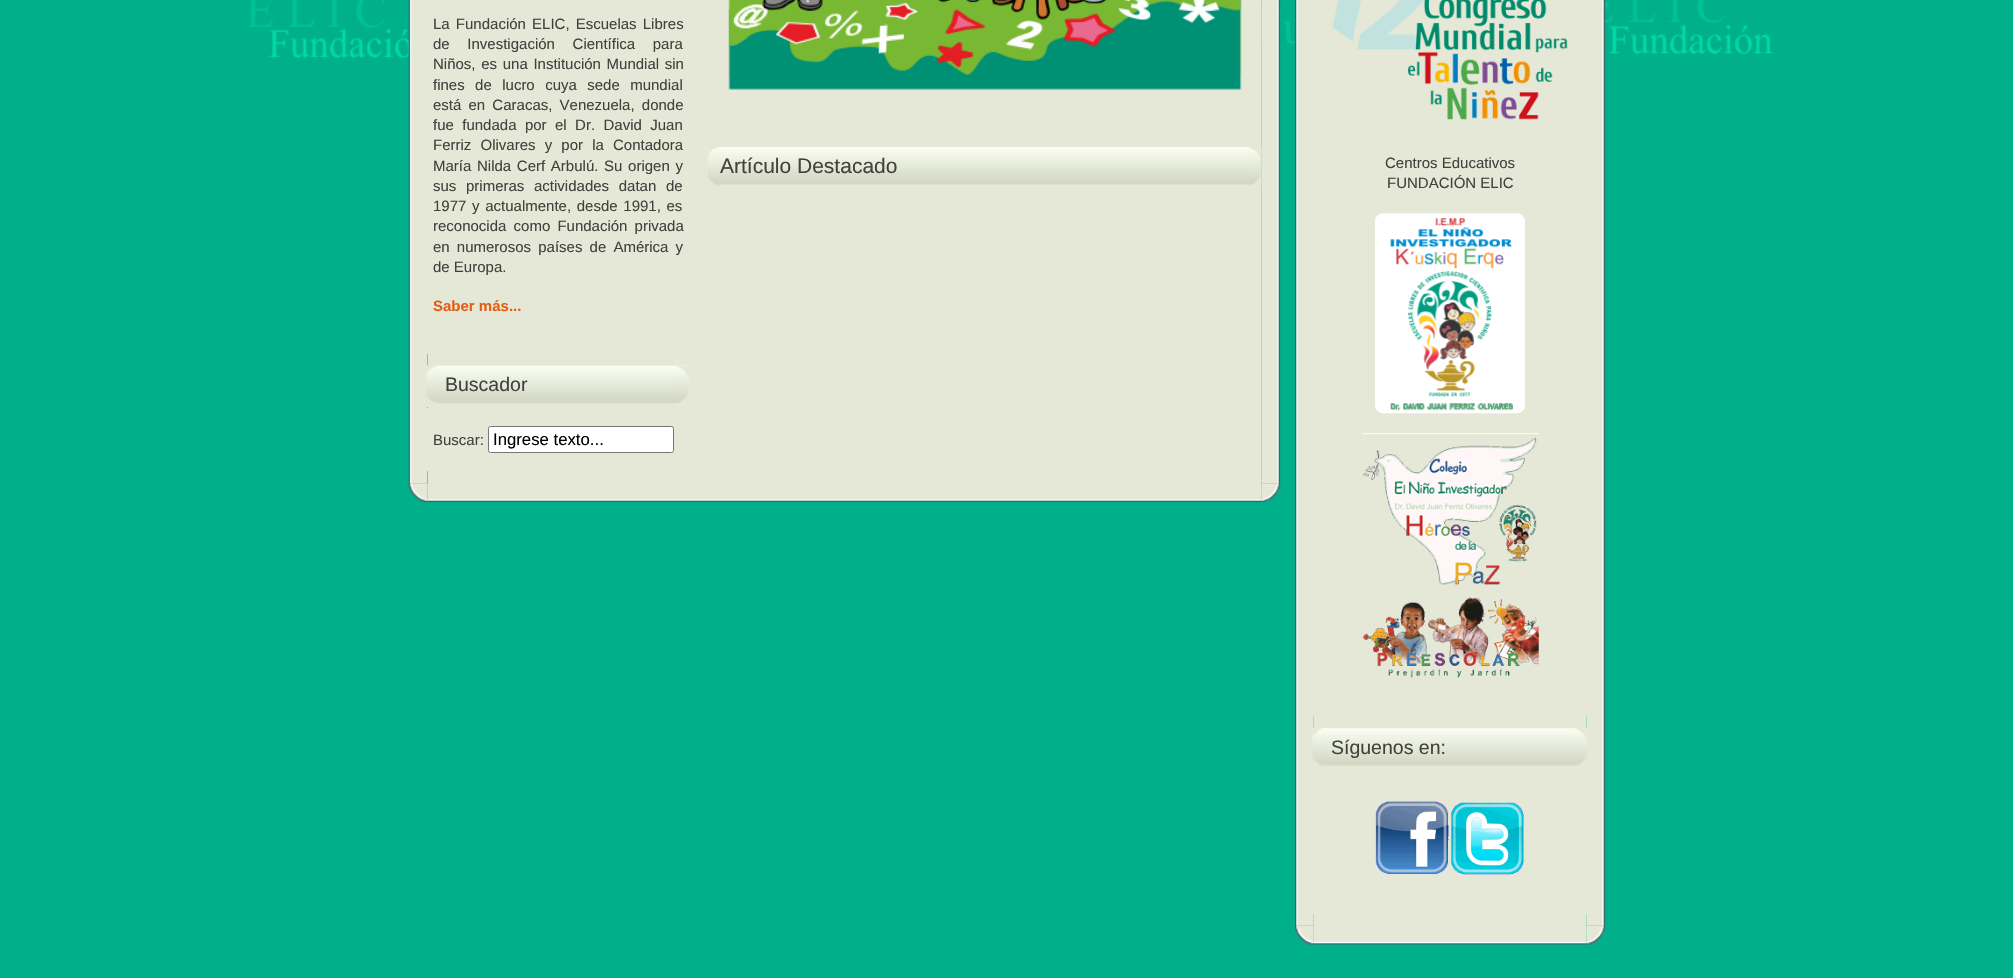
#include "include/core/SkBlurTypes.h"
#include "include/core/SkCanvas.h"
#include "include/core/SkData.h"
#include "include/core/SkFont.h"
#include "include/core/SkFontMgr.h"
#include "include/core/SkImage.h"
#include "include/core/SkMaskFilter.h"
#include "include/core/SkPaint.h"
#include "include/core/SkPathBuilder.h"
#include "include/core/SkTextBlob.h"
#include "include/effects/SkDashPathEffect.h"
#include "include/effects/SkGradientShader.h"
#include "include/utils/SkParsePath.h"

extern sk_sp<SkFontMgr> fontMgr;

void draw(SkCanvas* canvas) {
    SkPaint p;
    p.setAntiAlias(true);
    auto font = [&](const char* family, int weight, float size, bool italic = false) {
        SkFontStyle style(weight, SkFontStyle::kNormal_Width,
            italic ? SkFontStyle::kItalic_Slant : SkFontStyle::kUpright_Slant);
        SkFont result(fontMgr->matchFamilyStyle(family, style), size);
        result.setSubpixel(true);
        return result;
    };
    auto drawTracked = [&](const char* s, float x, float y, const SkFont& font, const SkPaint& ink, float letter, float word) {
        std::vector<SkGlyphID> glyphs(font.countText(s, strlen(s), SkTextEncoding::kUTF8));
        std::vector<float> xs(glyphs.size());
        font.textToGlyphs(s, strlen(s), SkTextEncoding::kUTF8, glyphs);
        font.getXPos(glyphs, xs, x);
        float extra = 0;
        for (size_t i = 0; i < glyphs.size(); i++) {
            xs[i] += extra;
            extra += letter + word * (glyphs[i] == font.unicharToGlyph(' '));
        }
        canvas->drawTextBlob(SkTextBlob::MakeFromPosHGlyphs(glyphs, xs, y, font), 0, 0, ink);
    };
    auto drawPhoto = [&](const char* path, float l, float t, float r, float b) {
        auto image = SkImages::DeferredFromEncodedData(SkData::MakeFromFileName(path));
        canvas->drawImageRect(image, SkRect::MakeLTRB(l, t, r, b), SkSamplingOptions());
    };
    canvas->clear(0xFF00B08A);
    drawPhoto("media/1.png", 246, 0, 1773, 60);
    p.setColor(0xFFE5E8D6);
    canvas->drawRect(SkRect::MakeLTRB(428, 0, 1261, 484), p);
    drawPhoto("media/2.png", 408, 0, 428, 484);
    drawPhoto("media/11.png", 427, 483, 1262, 503);
    drawPhoto("media/13.png", 1261, 483, 1281, 502);
    drawPhoto("media/3.png", 1261, 0, 1281, 484);
    canvas->drawRect(SkRect::MakeLTRB(427, 0, 428, 354), p);
    auto font1 = font("Liberation Sans", 400, 15);
    p.setColor(0xFF41423D);
    drawTracked("La Fundación ELIC, Escuelas Libres", 433, 29, font1, p, 0, 2);
    drawTracked("de Investigación Científica para", 433, 49, font1, p, 0, 13.5f);
    drawTracked("Niños, es una Institución Mundial sin", 433, 69, font1, p, 0, 1.5f);
    drawTracked("fines de lucro cuya sede mundial", 433, 90, font1, p, 0, 6.25f);
    drawTracked("está en Caracas, Venezuela, donde", 433, 110, font1, p, 0, 3);
    drawTracked("fue fundada por el Dr. David Juan", 433, 130, font1, p, 0, 4.25f);
    drawTracked("Ferriz Olivares y por la Contadora", 433, 150, font1, p, 0, 5);
    drawTracked("María Nilda Cerf Arbulú. Su origen y", 433, 171, font1, p, 0, 1.5f);
    drawTracked("sus primeras actividades datan de", 433, 191, font1, p, 0, 5.5f);
    drawTracked("1977 y actualmente, desde 1991, es", 433, 211, font1, p, 0, 1.5f);
    drawTracked("reconocida como Fundación privada", 433, 231, font1, p, 0, 3);
    drawTracked("en numerosos países de América y", 433, 252, font1, p, 0, 3);
    canvas->drawString("de Europa.", 433, 272, font1, p);
    auto font2 = font("Liberation Sans", 700, 15);
    p.setColor(0xFFE05E19);
    canvas->drawString("Saber más...", 433, 311, font2, p);
    drawPhoto("media/4.png", 426, 365, 689, 407);
    drawPhoto("media/5.png", 426, 365, 439, 404);
    drawPhoto("media/6.png", 676, 366, 689, 404);
    auto font3 = font("Liberation Sans", 400, 19.5f);
    p.setColor(0xFF41423D);
    canvas->drawString("Buscador", 445, 391, font3, p);
    p.setColor(0xFFE5E8D6);
    canvas->drawRect(SkRect::MakeLTRB(427, 408, 428, 471), p);
    p.setColor(0xFF41423D);
    canvas->drawString("Buscar:", 433, 445, font1, p);
    p.setColor(0xFFFFFFFF);
    canvas->drawRoundRect(SkRect::MakeLTRB(488.5f, 426.5f, 673.5f, 452.5f), 2, 2, p);
    p.setStyle(SkPaint::kStroke_Style);
    p.setStrokeWidth(1);
    p.setColor(0xFF767676);
    canvas->drawRoundRect(SkRect::MakeLTRB(488.5f, 426.5f, 673.5f, 452.5f), 2, 2, p);
    auto font4 = font("Liberation Sans", 400, 16.75f);
    p.setStyle(SkPaint::kFill_Style);
    p.setColor(0xFF000000);
    canvas->drawString("Ingrese texto...", 493, 445, font4, p);
    drawPhoto("media/7.png", 728, 0, 1242, 90);
    drawPhoto("media/8.png", 707, 147, 1262, 186);
    drawPhoto("media/9.png", 708, 147, 720, 186);
    drawPhoto("media/10.png", 1249, 147, 1262, 186);
    auto font5 = font("Liberation Sans", 400, 21);
    p.setColor(0xFF41423D);
    canvas->drawString("Artículo Destacado", 720, 173, font5, p);
    drawPhoto("media/12.png", 408, 483, 428, 503);
    p.setColor(0xFFE5E8D6);
    canvas->drawRect(SkRect::MakeLTRB(1314, 716, 1586, 926), p);
    drawPhoto("media/14.png", 1294, 0, 1314, 926);
    drawPhoto("media/24.png", 1313, 926, 1587, 945);
    drawPhoto("media/26.png", 1586, 925, 1606, 945);
    drawPhoto("media/15.png", 1586, 0, 1606, 926);
    canvas->drawRect(SkRect::MakeLTRB(1313, 0, 1587, 716), p);
    drawPhoto("media/16.png", 1332, 0, 1568, 120);
    p.setColor(0xFF41423D);
    canvas->drawString("Centros Educativos", 1385, 168, font1, p);
    canvas->drawString("FUNDACIÓN ELIC", 1387, 188, font1, p);
    drawPhoto("media/17.png", 1375, 213, 1525, 414);
    drawPhoto("media/18.png", 1362, 433, 1539, 678);
    drawPhoto("media/19.png", 1312, 728, 1588, 770);
    drawPhoto("media/20.png", 1312, 728, 1325, 770);
    drawPhoto("media/21.png", 1575, 728, 1588, 770);
    canvas->drawString("Síguenos en:", 1331, 754, font3, p);
    p.setColor(0xFFE5E8D6);
    canvas->drawRect(SkRect::MakeLTRB(1313, 770, 1587, 914), p);
    drawPhoto("media/22.png", 1375, 801, 1449, 874);
    drawPhoto("media/23.png", 1451, 802, 1524, 875);
    drawPhoto("media/25.png", 1295, 925, 1314, 945);
}
